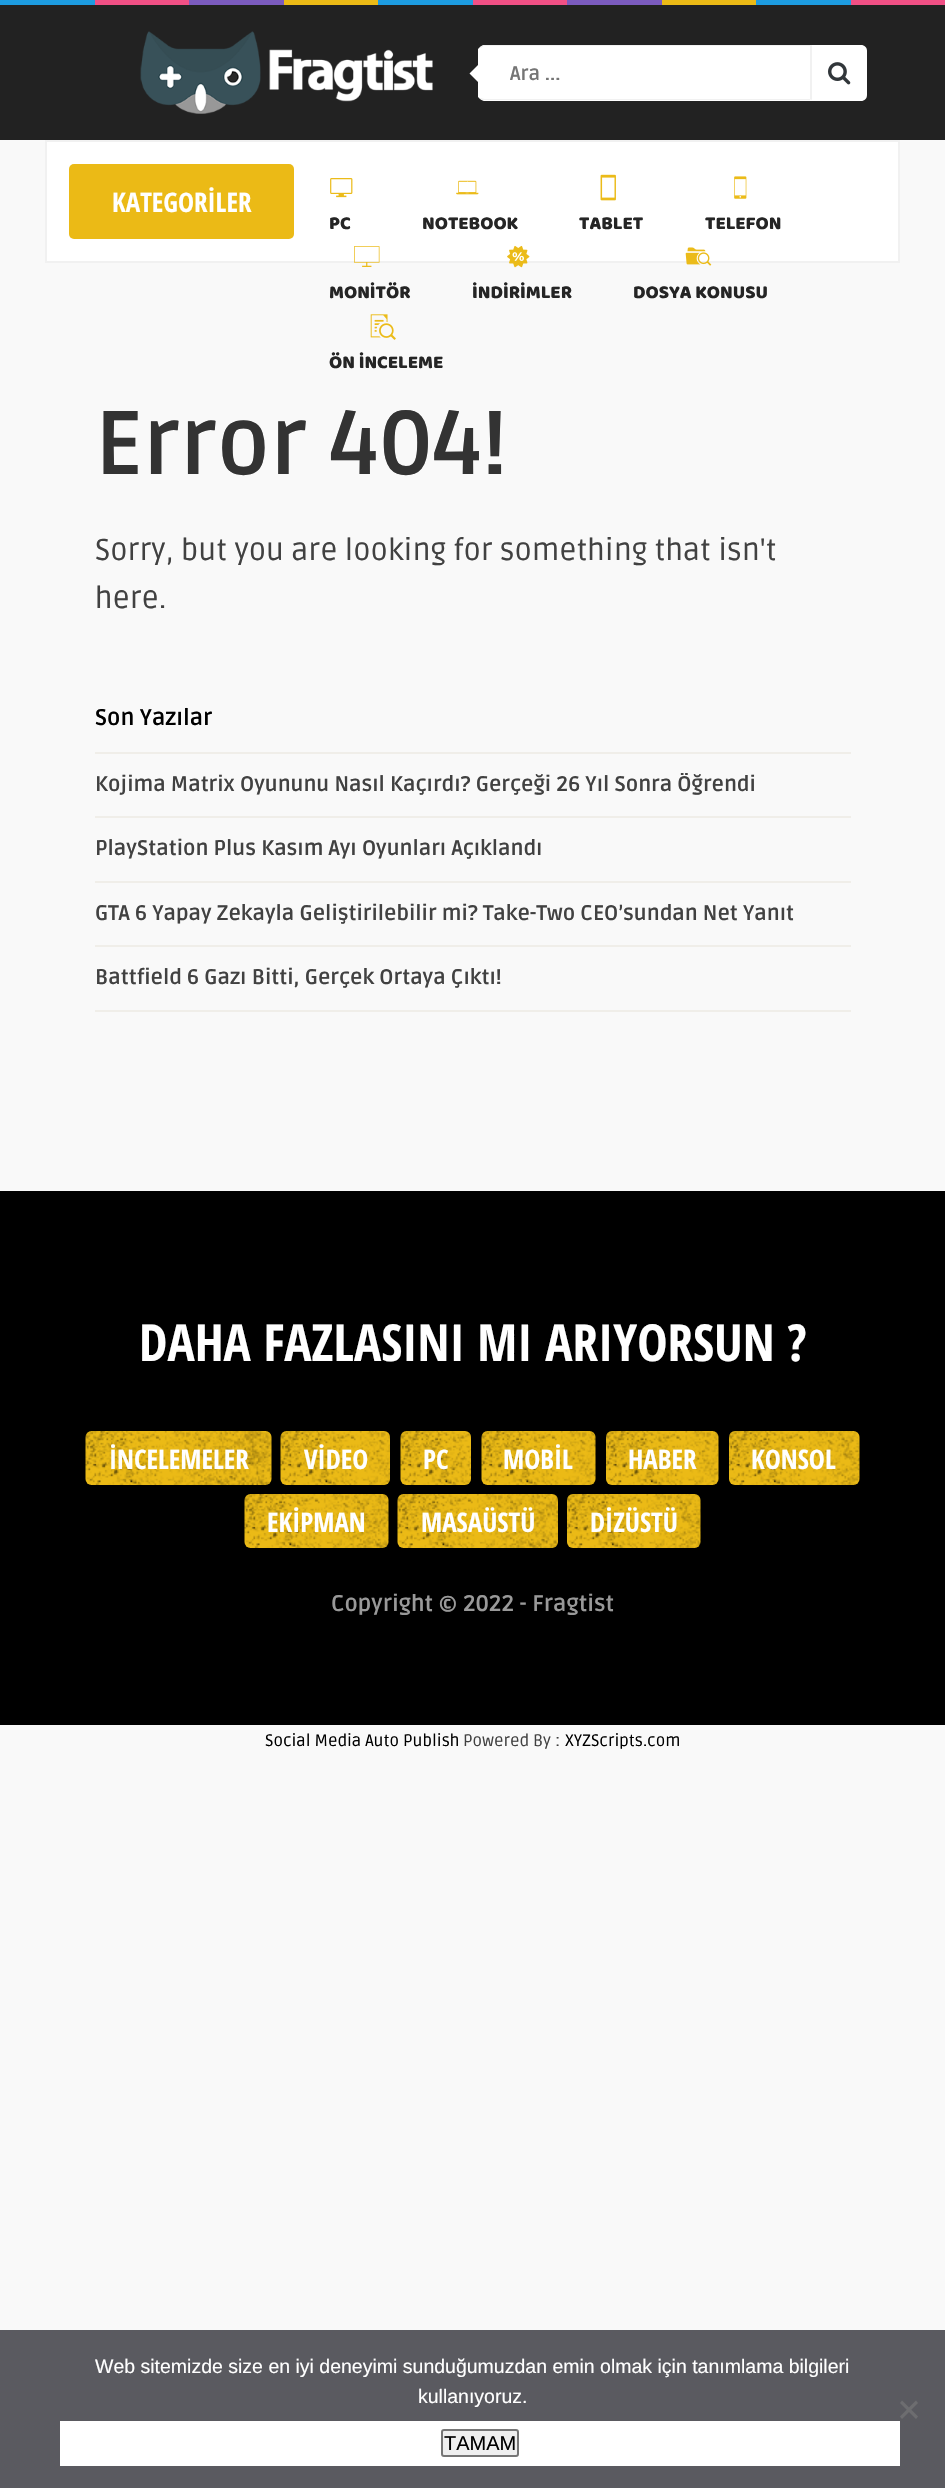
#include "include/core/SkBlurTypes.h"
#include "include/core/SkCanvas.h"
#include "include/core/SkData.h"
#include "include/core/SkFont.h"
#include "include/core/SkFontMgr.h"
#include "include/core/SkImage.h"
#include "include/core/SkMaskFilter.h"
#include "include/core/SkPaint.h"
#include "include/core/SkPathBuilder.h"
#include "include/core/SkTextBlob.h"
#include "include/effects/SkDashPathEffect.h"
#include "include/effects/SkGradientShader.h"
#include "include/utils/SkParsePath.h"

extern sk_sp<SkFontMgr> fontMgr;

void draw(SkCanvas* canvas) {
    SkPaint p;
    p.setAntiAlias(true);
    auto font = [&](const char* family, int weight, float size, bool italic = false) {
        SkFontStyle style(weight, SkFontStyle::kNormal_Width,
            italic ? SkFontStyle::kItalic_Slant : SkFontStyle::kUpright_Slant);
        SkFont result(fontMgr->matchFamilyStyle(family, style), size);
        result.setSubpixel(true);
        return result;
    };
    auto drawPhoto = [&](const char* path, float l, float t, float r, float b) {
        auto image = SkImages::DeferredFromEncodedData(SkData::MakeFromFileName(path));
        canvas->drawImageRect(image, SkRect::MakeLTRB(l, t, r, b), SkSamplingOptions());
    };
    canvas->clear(0xFFF9F9F9);
    {
        const struct { float l, t, r, b; SkColor color; } items[] = {
            {0, 5, 945, 140, 0xFF222222},
            {95, 0, 945, 5, 0xFFF15085},
            {0, 0, 95, 5, 0xFF1D9CE1},
            {189, 0, 284, 5, 0xFF7B5BBE},
            {284, 0, 378, 5, 0xFFEBBA16},
            {378, 0, 473, 5, 0xFF1D9CE1},
            {567, 0, 662, 5, 0xFF7B5BBE},
            {662, 0, 756, 5, 0xFFEBBA16},
            {756, 0, 851, 5, 0xFF1D9CE1},
        };
        for (auto [l, t, r, b, color] : items) {
            p.setColor(color);
            canvas->drawRect(SkRect::MakeLTRB(l, t, r, b), p);
        }
    }
    drawPhoto("media/1.png", 140, 31, 433, 114);
    p.setColor(0xFFFFFFFF);
    canvas->drawPath(SkPathBuilder().moveTo(485, 45).lineTo(812, 45).lineTo(812, 101).lineTo(485, 101).cubicTo(481.5f, 101, 479, 98.5f, 479, 95).lineTo(479, 51).cubicTo(479, 47.5f, 481.5f, 45, 485, 45).close().detach(), p);
    p.setColor(0xFFF1F1F1);
    canvas->drawPath(SkPathBuilder().moveTo(484, 45).cubicTo(483, 45, 481, 46, 480, 47).lineTo(481, 48).cubicTo(482, 47, 483, 46, 484, 46).lineTo(810, 46).lineTo(812, 45).close().detach(), p);
    canvas->drawPath(SkPathBuilder().moveTo(812, 45).lineTo(812, 100).lineTo(810, 99).lineTo(810, 46).close().detach(), p);
    canvas->drawPath(SkPathBuilder().moveTo(811, 100).lineTo(484, 100).cubicTo(483, 100, 481, 100, 480, 99).lineTo(481, 98).lineTo(484, 99).lineTo(810, 99).close().detach(), p);
    p.setColor(0xFFFFFFFF);
    canvas->drawPath(SkPathBuilder().moveTo(478, 49).lineTo(480, 47).lineTo(481, 48).cubicTo(480, 49, 480, 50, 480, 51).lineTo(480, 94).cubicTo(480, 96, 481, 97, 481, 98).lineTo(480, 99).lineTo(478, 97).close().detach(), p);
    canvas->drawPath(SkPathBuilder().moveTo(484.5f, 58.5f).lineTo(484.5f, 88.5f).lineTo(469.5f, 73.5f).close().detach(), p);
    auto font1 = font("Ruda", 700, 19.5f);
    p.setColor(0xFF757575);
    canvas->drawString("Ara ...", 510, 80, font1, p);
    p.setColor(0xFFFFFFFF);
    canvas->drawPath(SkPathBuilder().moveTo(812, 45).lineTo(861, 45).cubicTo(864.5f, 45, 867, 47.5f, 867, 51).lineTo(867, 95).cubicTo(867, 98.5f, 864.5f, 101, 861, 101).lineTo(812, 101).close().detach(), p);
    drawPhoto("media/2.png", 828, 62, 851, 85);
    canvas->drawRect(SkRect::MakeLTRB(46, 141, 899, 262), p);
    p.setStyle(SkPaint::kStroke_Style);
    p.setStrokeWidth(2);
    p.setColor(0xFFF1F1F1);
    canvas->drawRect(SkRect::MakeLTRB(46, 141, 899, 262), p);
    p.setStyle(SkPaint::kFill_Style);
    p.setColor(0xFFEBBA16);
    canvas->drawRoundRect(SkRect::MakeLTRB(69, 164, 294, 239), 5, 5, p);
    auto font2 = font("Open Sans Condensed", 700, 27);
    p.setColor(0xFFFFFFFF);
    canvas->drawString("KATEGORİLER", 112, 212, font2, p);
    drawPhoto("media/3.png", 330, 178, 353, 198);
    auto font3 = font("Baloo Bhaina", 400, 18.75f);
    p.setColor(0xFF252525);
    canvas->drawString("PC", 329, 229, font3, p);
    drawPhoto("media/4.png", 456, 180, 479, 195);
    canvas->drawString("NOTEBOOK", 422, 229, font3, p);
    drawPhoto("media/5.png", 600, 174, 616, 201);
    canvas->drawString("TABLET", 579, 229, font3, p);
    drawPhoto("media/6.png", 734, 176, 747, 199);
    canvas->drawString("TELEFON", 705, 229, font3, p);
    drawPhoto("media/7.png", 354, 246, 380, 267);
    canvas->drawString("MONİTÖR", 329, 298, font3, p);
    drawPhoto("media/8.png", 507, 245, 530, 268);
    canvas->drawString("İNDİRİMLER", 472, 298, font3, p);
    drawPhoto("media/9.png", 685, 247, 712, 266);
    canvas->drawString("DOSYA KONUSU", 633, 298, font3, p);
    drawPhoto("media/10.png", 370, 314, 396, 340);
    canvas->drawString("ÖN İNCELEME", 329, 368, font3, p);
    auto font4 = font("Ruda", 700, 90);
    p.setColor(0xFF333333);
    canvas->drawString("Error 404!", 95, 474, font4, p);
    auto font5 = font("Ruda", 400, 30);
    p.setColor(0xFF414141);
    canvas->drawString("Sorry, but you are looking for something that isn't", 95, 560, font5, p);
    canvas->drawString("here.", 95, 608, font5, p);
    auto font6 = font("Ruda", 700, 22.5f);
    p.setColor(0xFF000000);
    canvas->drawString("Son Yazılar", 95, 725, font6, p);
    p.setColor(0xFFF0EEE9);
    canvas->drawRect(SkRect::MakeLTRB(95, 752, 851, 754), p);
    canvas->drawRect(SkRect::MakeLTRB(95, 816, 851, 818), p);
    auto font7 = font("Ruda", 700, 21);
    p.setColor(0xFF414141);
    canvas->drawString("Kojima Matrix Oyununu Nasıl Kaçırdı? Gerçeği 26 Yıl Sonra Öğrendi", 95, 791, font7, p);
    p.setColor(0xFFF0EEE9);
    canvas->drawRect(SkRect::MakeLTRB(95, 881, 851, 883), p);
    p.setColor(0xFF414141);
    canvas->drawString("PlayStation Plus Kasım Ayı Oyunları Açıklandı", 95, 855, font7, p);
    p.setColor(0xFFF0EEE9);
    canvas->drawRect(SkRect::MakeLTRB(95, 945, 851, 947), p);
    p.setColor(0xFF414141);
    canvas->drawString("GTA 6 Yapay Zekayla Geliştirilebilir mi? Take-Two CEO’sundan Net Yanıt", 95, 920, font7, p);
    p.setColor(0xFFF0EEE9);
    canvas->drawRect(SkRect::MakeLTRB(95, 1010, 851, 1012), p);
    p.setColor(0xFF414141);
    canvas->drawString("Battfield 6 Gazı Bitti, Gerçek Ortaya Çıktı!", 95, 984, font7, p);
    p.setColor(0xFF000000);
    canvas->drawRect(SkRect::MakeLTRB(0, 1191, 945, 1725), p);
    auto font8 = font("Open Sans Condensed", 700, 51);
    p.setColor(0xFFFFFFFF);
    canvas->drawString("DAHA FAZLASINI MI ARIYORSUN ?", 139, 1361, font8, p);
    drawPhoto("media/11.png", 85, 1431, 272, 1485);
    canvas->drawString("İNCELEMELER", 109, 1469, font2, p);
    drawPhoto("media/12.png", 280, 1431, 390, 1485);
    canvas->drawString("VİDEO", 304, 1469, font2, p);
    drawPhoto("media/13.png", 400, 1431, 471, 1485);
    canvas->drawString("PC", 423, 1469, font2, p);
    drawPhoto("media/14.png", 481, 1431, 596, 1485);
    canvas->drawString("MOBİL", 503, 1469, font2, p);
    drawPhoto("media/15.png", 606, 1431, 719, 1485);
    canvas->drawString("HABER", 628, 1469, font2, p);
    drawPhoto("media/16.png", 729, 1431, 860, 1485);
    canvas->drawString("KONSOL", 751, 1469, font2, p);
    drawPhoto("media/17.png", 244, 1494, 389, 1548);
    canvas->drawString("EKİPMAN", 267, 1532, font2, p);
    drawPhoto("media/18.png", 397, 1494, 558, 1548);
    canvas->drawString("MASAÜSTÜ", 421, 1532, font2, p);
    drawPhoto("media/19.png", 567, 1494, 701, 1548);
    canvas->drawString("DİZÜSTÜ", 590, 1532, font2, p);
    p.setColor(0xFF999999);
    canvas->drawString("Copyright © 2022 - Fragtist", 331, 1611, font6, p);
    auto font9 = font("Ruda", 400, 16.5f);
    p.setColor(0xFF000000);
    canvas->drawString("Social Media Auto Publish", 265, 1746, font9, p);
    p.setColor(0xFF414141);
    canvas->drawString("Powered By :", 463, 1746, font9, p);
    p.setColor(0xFF000000);
    canvas->drawString("XYZScripts.com", 565, 1746, font9, p);
    p.setColor(0xFF5A5A60);
    canvas->drawRect(SkRect::MakeLTRB(0, 2330, 945, 2488), p);
    auto font10 = font("Liberation Sans", 400, 19.5f);
    p.setColor(0xFFFFFFFF);
    canvas->drawString("Web sitemizde size en iyi deneyimi sunduğumuzdan emin olmak için tanımlama bilgileri", 95, 2373, font10, p);
    canvas->drawString("kullanıyoruz.", 418, 2403, font10, p);
    p.setColor(0xFF6D6D70);
    canvas->drawPath(SkPathBuilder().moveTo(916, 2400.5f).lineTo(918, 2403).lineTo(902, 2419).lineTo(900, 2416.5f).close().detach(), p);
    canvas->drawPath(SkPathBuilder().moveTo(900, 2403).lineTo(902, 2400.5f).lineTo(918, 2416.5f).lineTo(916, 2419).close().detach(), p);
    p.setColor(0xFFFFFFFF);
    canvas->drawRect(SkRect::MakeLTRB(60, 2421, 900, 2466), p);
    p.setColor(0xFFEFEFEF);
    canvas->drawRoundRect(SkRect::MakeLTRB(442, 2430, 518, 2456), 2, 2, p);
    p.setStyle(SkPaint::kStroke_Style);
    p.setColor(0xFF767676);
    canvas->drawRoundRect(SkRect::MakeLTRB(442, 2430, 518, 2456), 2, 2, p);
    auto font11 = font("Liberation Sans", 400, 20);
    p.setStyle(SkPaint::kFill_Style);
    p.setColor(0xFF000000);
    canvas->drawString("TAMAM", 444, 2450, font11, p);
}
